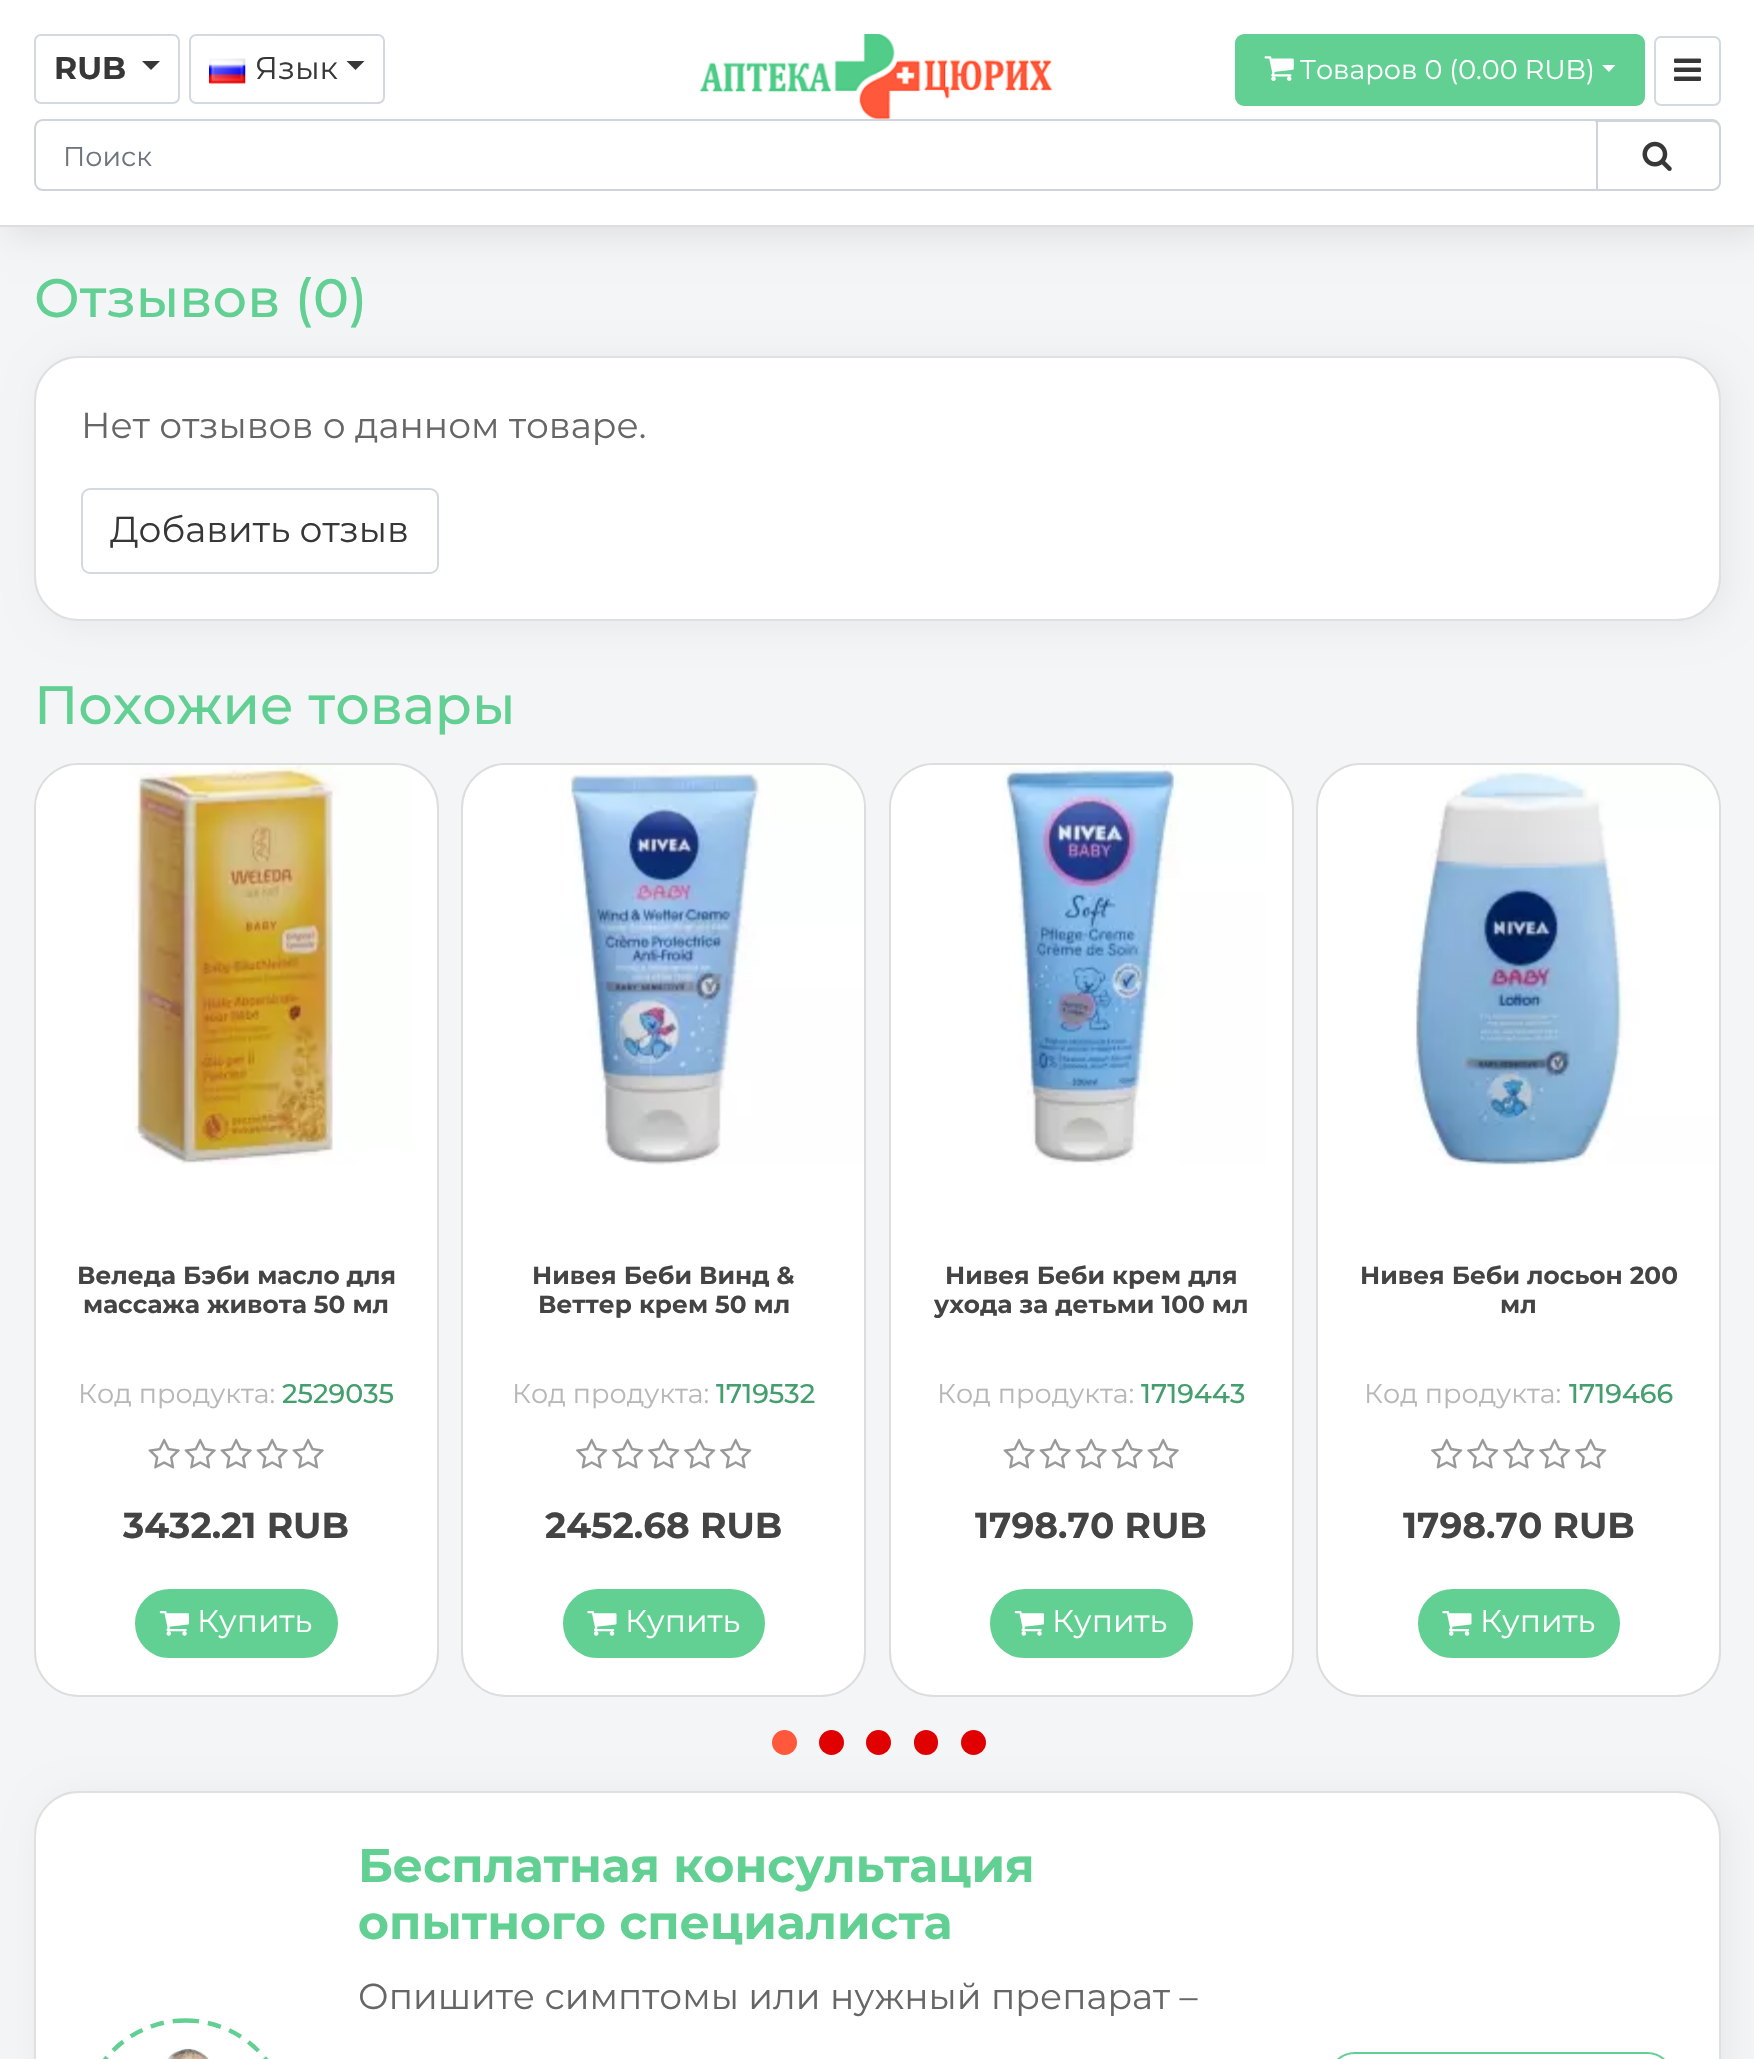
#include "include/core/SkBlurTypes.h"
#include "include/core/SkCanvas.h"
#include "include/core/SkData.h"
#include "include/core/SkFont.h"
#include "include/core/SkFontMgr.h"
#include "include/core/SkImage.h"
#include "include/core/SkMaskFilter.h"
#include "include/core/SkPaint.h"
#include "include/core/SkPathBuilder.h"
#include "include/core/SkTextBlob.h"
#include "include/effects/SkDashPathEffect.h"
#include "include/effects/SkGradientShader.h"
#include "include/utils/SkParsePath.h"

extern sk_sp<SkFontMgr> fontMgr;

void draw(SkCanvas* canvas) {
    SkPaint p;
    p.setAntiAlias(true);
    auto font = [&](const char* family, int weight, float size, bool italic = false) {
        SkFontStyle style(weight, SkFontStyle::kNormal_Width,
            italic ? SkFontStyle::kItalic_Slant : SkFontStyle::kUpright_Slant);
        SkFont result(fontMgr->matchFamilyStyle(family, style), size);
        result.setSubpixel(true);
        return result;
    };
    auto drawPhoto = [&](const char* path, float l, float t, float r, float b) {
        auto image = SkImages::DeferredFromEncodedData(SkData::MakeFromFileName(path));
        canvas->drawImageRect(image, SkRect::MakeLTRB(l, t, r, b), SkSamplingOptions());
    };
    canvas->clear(0xFFF3F5F6);
    p.setColor(0x1A000000);
    p.setMaskFilter(SkMaskFilter::MakeBlur(kNormal_SkBlurStyle, 17));
    canvas->drawRect(SkRect::MakeLTRB(7, 5, 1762, 232), p);
    p.setMaskFilter(nullptr);
    p.setColor(0xFFFFFFFF);
    canvas->drawRect(SkRect::MakeLTRB(0, 0, 1754, 225), p);
    p.setColor(0xFFDDDDDD);
    canvas->drawRect(SkRect::MakeLTRB(0, 225, 1754, 227), p);
    p.setStyle(SkPaint::kStroke_Style);
    p.setStrokeWidth(2);
    p.setColor(0xFFD4D9DF);
    canvas->drawRoundRect(SkRect::MakeLTRB(35, 35, 179, 103), 6, 6, p);
    auto font1 = font("Montserrat", 700, 31.5f);
    p.setStyle(SkPaint::kFill_Style);
    p.setColor(0xFF373737);
    canvas->drawString("RUB", 54, 79, font1, p);
    canvas->drawPath(SkPathBuilder().moveTo(142, 61).lineTo(160, 61).lineTo(151, 70).close().detach(), p);
    p.setStyle(SkPaint::kStroke_Style);
    p.setColor(0xFFD4D9DF);
    canvas->drawRoundRect(SkRect::MakeLTRB(190, 35, 384, 103), 6, 6, p);
    drawPhoto("media/1.png", 209, 58, 246, 84);
    auto font2 = font("Montserrat", 400, 31.5f);
    p.setStyle(SkPaint::kFill_Style);
    p.setColor(0xFF373737);
    canvas->drawString("Язык", 255, 79, font2, p);
    canvas->drawPath(SkPathBuilder().moveTo(346.5f, 61).lineTo(364.5f, 61).lineTo(355.5f, 70).close().detach(), p);
    drawPhoto("media/2.png", 699, 34, 1053, 119);
    p.setColor(0xFF61D092);
    canvas->drawRoundRect(SkRect::MakeLTRB(1236, 35, 1644, 105), 8, 8, p);
    p.setStyle(SkPaint::kStroke_Style);
    canvas->drawRoundRect(SkRect::MakeLTRB(1236, 35, 1644, 105), 8, 8, p);
    drawPhoto("media/3.png", 1264, 56, 1294, 81);
    auto font3 = font("Montserrat", 400, 27);
    p.setStyle(SkPaint::kFill_Style);
    p.setColor(0xFFFFFFFF);
    canvas->drawString("Товаров 0 (0.00 RUB)", 1300, 79, font3, p);
    canvas->drawPath(SkPathBuilder().moveTo(1602, 65).lineTo(1615.5f, 65).lineTo(1609, 72).close().detach(), p);
    p.setStyle(SkPaint::kStroke_Style);
    p.setColor(0xFFD4D9DF);
    canvas->drawRoundRect(SkRect::MakeLTRB(1655, 37, 1720, 105), 6, 6, p);
    drawPhoto("media/4.png", 1674, 58, 1701, 81);
    p.setStyle(SkPaint::kFill_Style);
    p.setColor(0xFFCED4DA);
    canvas->drawPath(SkPathBuilder(SkPathFillType::kEvenOdd).moveTo(1595, 119).lineTo(1712, 119).cubicTo(1717, 119, 1721, 123, 1721, 128).lineTo(1721, 182).cubicTo(1721, 187, 1717, 191, 1712, 191).lineTo(1595, 191).close().moveTo(1595, 122).lineTo(1712, 122).cubicTo(1716, 122, 1719, 125, 1719, 128).lineTo(1719, 182).cubicTo(1719, 186, 1716, 189, 1712, 189).lineTo(1595, 189).close().detach(), p);
    p.setStyle(SkPaint::kStroke_Style);
    canvas->drawPath(SkPathBuilder().moveTo(43, 120).lineTo(1597, 120).lineTo(1597, 190).lineTo(43, 190).cubicTo(38.5f, 190, 35, 186.5f, 35, 182).lineTo(35, 128).cubicTo(35, 123.5f, 38.5f, 120, 43, 120).close().detach(), p);
    p.setStyle(SkPaint::kFill_Style);
    p.setColor(0xFF6C757D);
    canvas->drawString("Поиск", 63, 166, font3, p);
    drawPhoto("media/5.png", 1642, 141, 1672, 171);
    auto font4 = font("Montserrat", 500, 54);
    p.setColor(0xFF61D092);
    canvas->drawString("Отзывов (0)", 34, 317, font4, p);
    p.setColor(0x0D000000);
    p.setMaskFilter(SkMaskFilter::MakeBlur(kNormal_SkBlurStyle, 17));
    canvas->drawRoundRect(SkRect::MakeLTRB(41, 360, 1728, 626), 45, 45, p);
    p.setMaskFilter(nullptr);
    p.setColor(0xFFFFFFFF);
    canvas->drawRoundRect(SkRect::MakeLTRB(34, 356, 1721, 621), 45, 45, p);
    p.setStyle(SkPaint::kStroke_Style);
    p.setColor(0x1F000000);
    canvas->drawRoundRect(SkRect::MakeLTRB(35, 357, 1720, 620), 44, 44, p);
    auto font5 = font("Montserrat", 400, 36);
    p.setStyle(SkPaint::kFill_Style);
    p.setColor(0xFF666666);
    canvas->drawString("Нет отзывов о данном товаре.", 81, 438, font5, p);
    p.setStyle(SkPaint::kStroke_Style);
    p.setColor(0xFFD4D9DF);
    canvas->drawRoundRect(SkRect::MakeLTRB(82, 489, 438, 573), 8, 8, p);
    p.setStyle(SkPaint::kFill_Style);
    p.setColor(0xFF373737);
    canvas->drawString("Добавить отзыв", 110, 542, font5, p);
    p.setColor(0xFF61D092);
    canvas->drawString("Похожие товары", 34, 724, font4, p);
    p.setColor(0xFFFFFFFF);
    canvas->drawRoundRect(SkRect::MakeLTRB(35, 764, 438, 1696), 44, 44, p);
    p.setStyle(SkPaint::kStroke_Style);
    p.setColor(0xFFDDDDDD);
    canvas->drawRoundRect(SkRect::MakeLTRB(35, 764, 438, 1696), 44, 44, p);
    drawPhoto("media/6.png", 36, 765, 411, 1165);
    auto font6 = font("Montserrat", 700, 24.75f);
    p.setStyle(SkPaint::kFill_Style);
    p.setColor(0xFF444444);
    canvas->drawString("Веледа Бэби масло для", 77, 1284, font6, p);
    canvas->drawString("массажа живота 50 мл", 83, 1313, font6, p);
    p.setColor(0xFFB7B7B7);
    canvas->drawString("Код продукта:", 78, 1403, font3, p);
    auto font7 = font("Montserrat", 500, 27);
    p.setColor(0xFF459E6D);
    canvas->drawString("2529035", 282, 1403, font7, p);
    drawPhoto("media/7.png", 148, 1438, 180, 1469);
    drawPhoto("media/7.png", 184, 1438, 216, 1469);
    drawPhoto("media/7.png", 220, 1438, 252, 1469);
    drawPhoto("media/7.png", 256, 1438, 288, 1469);
    drawPhoto("media/7.png", 292, 1438, 324, 1469);
    auto font8 = font("Montserrat", 700, 36);
    p.setColor(0xFF444444);
    canvas->drawString("3432.21 RUB", 123, 1538, font8, p);
    p.setColor(0xFF61D092);
    canvas->drawRoundRect(SkRect::MakeLTRB(136, 1590, 337, 1657), 33.5f, 33.5f, p);
    p.setStyle(SkPaint::kStroke_Style);
    canvas->drawRoundRect(SkRect::MakeLTRB(136, 1590, 337, 1657), 33.5f, 33.5f, p);
    drawPhoto("media/8.png", 159, 1611, 189, 1636);
    p.setStyle(SkPaint::kFill_Style);
    p.setColor(0xFFFFFFFF);
    canvas->drawString("Купить", 197, 1632, font2, p);
    canvas->drawRoundRect(SkRect::MakeLTRB(462, 764, 865, 1696), 44, 44, p);
    p.setStyle(SkPaint::kStroke_Style);
    p.setColor(0xFFDDDDDD);
    canvas->drawRoundRect(SkRect::MakeLTRB(462, 764, 865, 1696), 44, 44, p);
    drawPhoto("media/9.png", 483, 765, 864, 1166);
    p.setStyle(SkPaint::kFill_Style);
    p.setColor(0xFF444444);
    canvas->drawString("Нивея Беби Винд &", 532, 1284, font6, p);
    canvas->drawString("Веттер крем 50 мл", 538, 1313, font6, p);
    p.setColor(0xFFB7B7B7);
    canvas->drawString("Код продукта:", 512, 1403, font3, p);
    p.setColor(0xFF459E6D);
    canvas->drawString("1719532", 716, 1403, font7, p);
    drawPhoto("media/10.png", 576, 1438, 608, 1469);
    drawPhoto("media/10.png", 612, 1438, 644, 1469);
    drawPhoto("media/10.png", 648, 1438, 680, 1469);
    drawPhoto("media/10.png", 684, 1438, 716, 1469);
    drawPhoto("media/10.png", 720, 1438, 752, 1469);
    p.setColor(0xFF444444);
    canvas->drawString("2452.68 RUB", 545, 1538, font8, p);
    p.setColor(0xFF61D092);
    canvas->drawRoundRect(SkRect::MakeLTRB(564, 1590, 764, 1657), 33.5f, 33.5f, p);
    p.setStyle(SkPaint::kStroke_Style);
    canvas->drawRoundRect(SkRect::MakeLTRB(564, 1590, 764, 1657), 33.5f, 33.5f, p);
    drawPhoto("media/11.png", 587, 1611, 617, 1636);
    p.setStyle(SkPaint::kFill_Style);
    p.setColor(0xFFFFFFFF);
    canvas->drawString("Купить", 625, 1632, font2, p);
    canvas->drawRoundRect(SkRect::MakeLTRB(890, 764, 1293, 1696), 44, 44, p);
    p.setStyle(SkPaint::kStroke_Style);
    p.setColor(0xFFDDDDDD);
    canvas->drawRoundRect(SkRect::MakeLTRB(890, 764, 1293, 1696), 44, 44, p);
    drawPhoto("media/12.png", 891, 765, 1266, 1166);
    p.setStyle(SkPaint::kFill_Style);
    p.setColor(0xFF444444);
    canvas->drawString("Нивея Беби крем для", 945, 1284, font6, p);
    canvas->drawString("ухода за детьми 100 мл", 934, 1313, font6, p);
    p.setColor(0xFFB7B7B7);
    canvas->drawString("Код продукта:", 937, 1403, font3, p);
    p.setColor(0xFF459E6D);
    canvas->drawString("1719443", 1141, 1403, font7, p);
    drawPhoto("media/7.png", 1003, 1438, 1035, 1469);
    drawPhoto("media/7.png", 1039, 1438, 1071, 1469);
    drawPhoto("media/7.png", 1075, 1438, 1107, 1469);
    drawPhoto("media/7.png", 1111, 1438, 1143, 1469);
    drawPhoto("media/7.png", 1147, 1438, 1179, 1469);
    p.setColor(0xFF444444);
    canvas->drawString("1798.70 RUB", 975, 1538, font8, p);
    p.setColor(0xFF61D092);
    canvas->drawRoundRect(SkRect::MakeLTRB(991, 1590, 1192, 1657), 33.5f, 33.5f, p);
    p.setStyle(SkPaint::kStroke_Style);
    canvas->drawRoundRect(SkRect::MakeLTRB(991, 1590, 1192, 1657), 33.5f, 33.5f, p);
    drawPhoto("media/8.png", 1014, 1611, 1044, 1636);
    p.setStyle(SkPaint::kFill_Style);
    p.setColor(0xFFFFFFFF);
    canvas->drawString("Купить", 1052, 1632, font2, p);
    canvas->drawRoundRect(SkRect::MakeLTRB(1317, 764, 1720, 1696), 44, 44, p);
    p.setStyle(SkPaint::kStroke_Style);
    p.setColor(0xFFDDDDDD);
    canvas->drawRoundRect(SkRect::MakeLTRB(1317, 764, 1720, 1696), 44, 44, p);
    drawPhoto("media/13.png", 1338, 765, 1719, 1166);
    p.setStyle(SkPaint::kFill_Style);
    p.setColor(0xFF444444);
    canvas->drawString("Нивея Беби лосьон 200", 1360, 1284, font6, p);
    canvas->drawString("мл", 1500, 1313, font6, p);
    p.setColor(0xFFB7B7B7);
    canvas->drawString("Код продукта:", 1364, 1403, font3, p);
    p.setColor(0xFF459E6D);
    canvas->drawString("1719466", 1569, 1403, font7, p);
    drawPhoto("media/10.png", 1431, 1438, 1463, 1469);
    drawPhoto("media/10.png", 1467, 1438, 1499, 1469);
    drawPhoto("media/10.png", 1503, 1438, 1535, 1469);
    drawPhoto("media/10.png", 1539, 1438, 1571, 1469);
    drawPhoto("media/10.png", 1575, 1438, 1607, 1469);
    p.setColor(0xFF444444);
    canvas->drawString("1798.70 RUB", 1403, 1538, font8, p);
    p.setColor(0xFF61D092);
    canvas->drawRoundRect(SkRect::MakeLTRB(1419, 1590, 1619, 1657), 33.5f, 33.5f, p);
    p.setStyle(SkPaint::kStroke_Style);
    canvas->drawRoundRect(SkRect::MakeLTRB(1419, 1590, 1619, 1657), 33.5f, 33.5f, p);
    drawPhoto("media/11.png", 1442, 1611, 1472, 1636);
    p.setStyle(SkPaint::kFill_Style);
    p.setColor(0xFFFFFFFF);
    canvas->drawString("Купить", 1480, 1632, font2, p);
    p.setColor(0xFFFF583B);
    canvas->drawCircle(784.5f, 1742.5f, 12.5f, p);
    p.setColor(0xFFE10000);
    canvas->drawCircle(831.5f, 1742.5f, 12.5f, p);
    canvas->drawCircle(878.5f, 1742.5f, 12.5f, p);
    canvas->drawRoundRect(SkRect::MakeLTRB(914, 1730, 938, 1755), 12, 12, p);
    canvas->drawCircle(973.5f, 1742.5f, 12.5f, p);
    p.setColor(0x0D000000);
    p.setMaskFilter(SkMaskFilter::MakeBlur(kNormal_SkBlurStyle, 17));
    canvas->drawRoundRect(SkRect::MakeLTRB(41, 1796, 1728, 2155), 45, 45, p);
    p.setMaskFilter(nullptr);
    p.setColor(0xFFFFFFFF);
    canvas->drawRoundRect(SkRect::MakeLTRB(34, 1791, 1721, 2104), 45, 45, p);
    p.setStyle(SkPaint::kStroke_Style);
    p.setColor(0x1F000000);
    canvas->drawRoundRect(SkRect::MakeLTRB(35, 1792, 1720, 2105), 44, 44, p);
    auto font9 = font("Montserrat", 700, 47.25f);
    p.setStyle(SkPaint::kFill_Style);
    p.setColor(0xFF61D092);
    canvas->drawString("Бесплатная консультация", 358, 1882, font9, p);
    canvas->drawString("опытного специалиста", 358, 1939, font9, p);
    p.setColor(0xFF666666);
    canvas->drawString("Опишите симптомы или нужный препарат –", 358, 2009, font5, p);
    p.setStyle(SkPaint::kStroke_Style);
    p.setStrokeWidth(4.5f);
    p.setColor(0xFF61D092);
    p.setPathEffect(SkDashPathEffect::Make({{13.5f, 9}}, 0));
    canvas->drawPath(SkPathBuilder().moveTo(185.5f, 2020.5f).cubicTo(242, 2020.5f, 288, 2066.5f, 288, 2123).cubicTo(288, 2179.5f, 242, 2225, 185.5f, 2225).cubicTo(129, 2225, 83, 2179.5f, 83, 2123).cubicTo(83, 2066.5f, 129, 2020.5f, 185.5f, 2020.5f).close().detach(), p);
    p.setPathEffect(nullptr);
    drawPhoto("media/14.png", 114, 2023, 257, 2059);
    p.setStrokeWidth(2);
    canvas->drawRoundRect(SkRect::MakeLTRB(1329, 2053, 1673, 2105), 44, 44, p);
}
